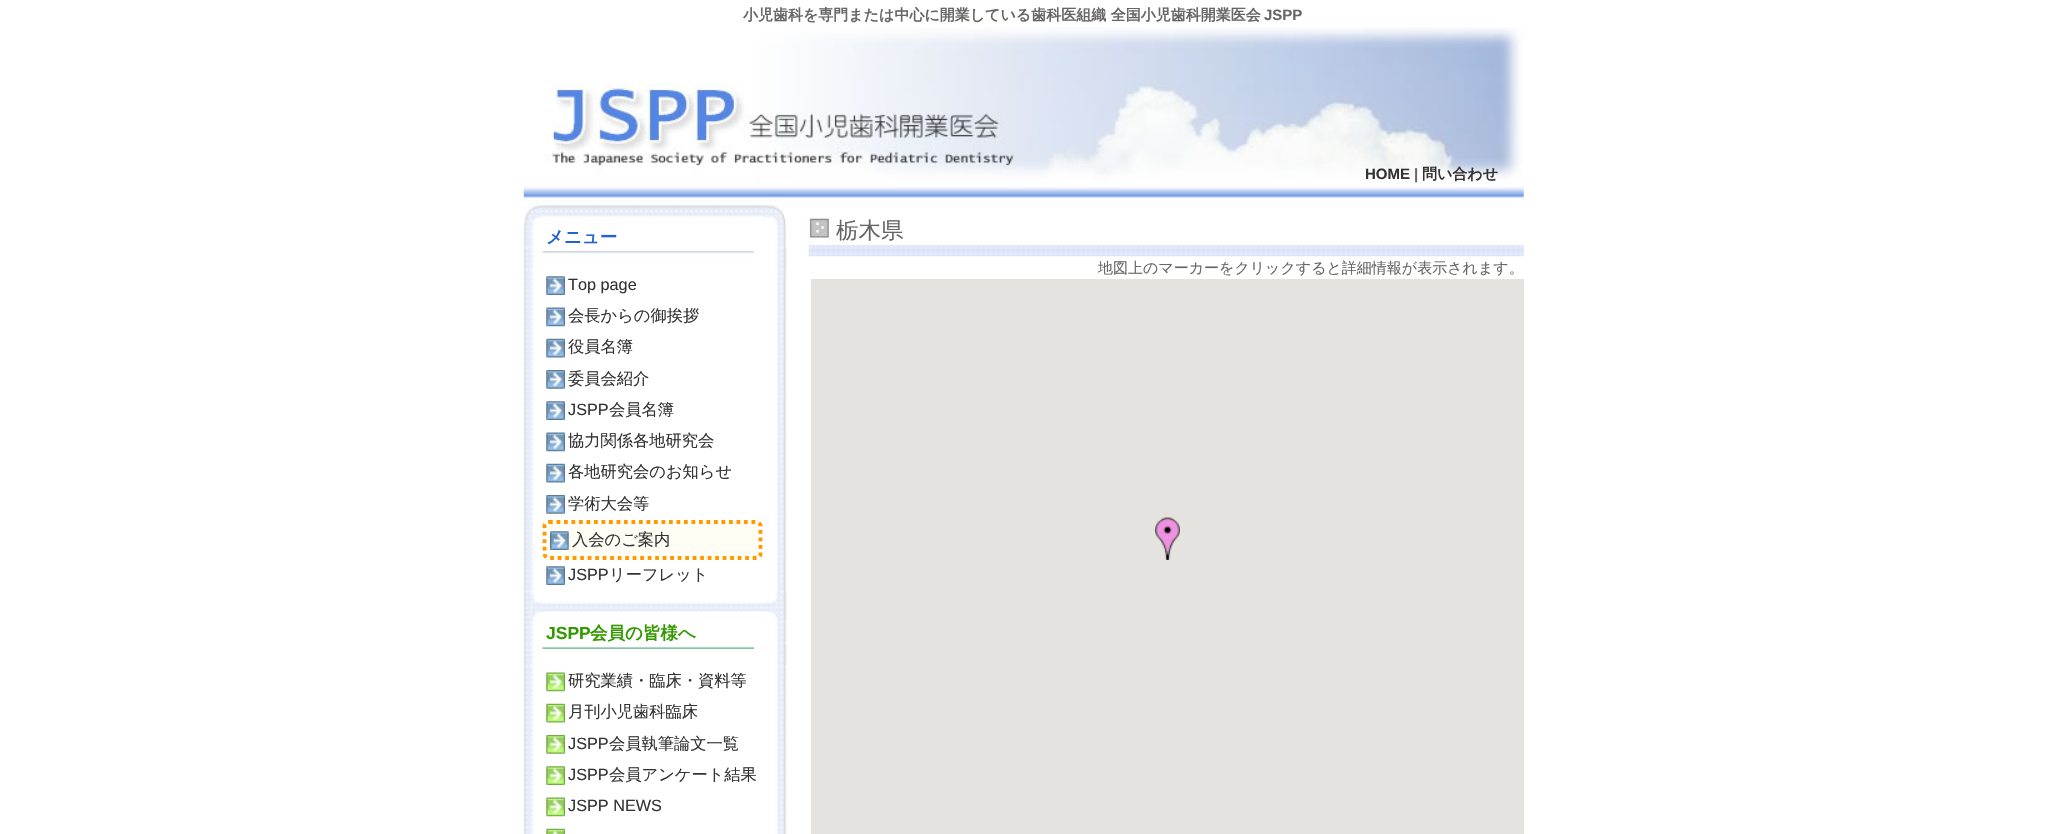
#include "include/core/SkBlurTypes.h"
#include "include/core/SkCanvas.h"
#include "include/core/SkData.h"
#include "include/core/SkFont.h"
#include "include/core/SkFontMgr.h"
#include "include/core/SkImage.h"
#include "include/core/SkMaskFilter.h"
#include "include/core/SkPaint.h"
#include "include/core/SkPathBuilder.h"
#include "include/core/SkTextBlob.h"
#include "include/effects/SkDashPathEffect.h"
#include "include/effects/SkGradientShader.h"
#include "include/utils/SkParsePath.h"

extern sk_sp<SkFontMgr> fontMgr;

void draw(SkCanvas* canvas) {
    SkPaint p;
    p.setAntiAlias(true);
    auto font = [&](const char* family, int weight, float size, bool italic = false) {
        SkFontStyle style(weight, SkFontStyle::kNormal_Width,
            italic ? SkFontStyle::kItalic_Slant : SkFontStyle::kUpright_Slant);
        SkFont result(fontMgr->matchFamilyStyle(family, style), size);
        result.setSubpixel(true);
        return result;
    };
    auto drawPhoto = [&](const char* path, float l, float t, float r, float b) {
        auto image = SkImages::DeferredFromEncodedData(SkData::MakeFromFileName(path));
        canvas->drawImageRect(image, SkRect::MakeLTRB(l, t, r, b), SkSamplingOptions());
    };
    canvas->clear(0xFFFFFFFF);
    auto font1 = font("WenQuanYi Zen Hei", 700, 15);
    p.setColor(0xFF666666);
    canvas->drawString("小児歯科を専門または中心に開業している歯科医組織 全国小児歯科開業医会", 743, 20, font1, p);
    auto font2 = font("Liberation Sans", 700, 15);
    canvas->drawString("JSPP", 1264, 20, font2, p);
    drawPhoto("media/1.png", 523, 27, 1524, 202);
    p.setColor(0xFF333333);
    canvas->drawString("HOME", 1365, 179, font2, p);
    p.setColor(0xFF666666);
    canvas->drawString("|", 1414, 179, font2, p);
    p.setColor(0xFF333333);
    canvas->drawString("問い合わせ", 1422, 179, font1, p);
    drawPhoto("media/2.png", 523, 205, 786, 225);
    drawPhoto("media/3.png", 523, 225, 787, 248);
    auto font3 = font("WenQuanYi Zen Hei", 700, 17.5f);
    p.setColor(0xFF2461D2);
    canvas->drawString("メニュー", 546, 243, font3, p);
    drawPhoto("media/20.png", 786, 217, 1524, 257);
    drawPhoto("media/4.png", 523, 247, 787, 270);
    drawPhoto("media/5.png", 523, 270, 787, 592);
    drawPhoto("media/6.png", 546, 276, 565, 295);
    auto font4 = font("Liberation Sans", 400, 16.25f);
    p.setColor(0xFF333333);
    canvas->drawString("Top page", 568, 290, font4, p);
    drawPhoto("media/7.png", 546, 307, 565, 327);
    auto font5 = font("WenQuanYi Zen Hei", 500, 16.25f);
    canvas->drawString("会長からの御挨拶", 568, 321, font5, p);
    drawPhoto("media/8.png", 546, 338, 565, 358);
    canvas->drawString("役員名簿", 568, 352, font5, p);
    drawPhoto("media/9.png", 546, 370, 565, 389);
    canvas->drawString("委員会紹介", 568, 384, font5, p);
    drawPhoto("media/6.png", 546, 401, 565, 420);
    canvas->drawString("JSPP", 568, 415, font4, p);
    canvas->drawString("会員名簿", 609, 415, font5, p);
    drawPhoto("media/7.png", 546, 432, 565, 452);
    canvas->drawString("協力関係各地研究会", 568, 446, font5, p);
    drawPhoto("media/8.png", 546, 463, 565, 483);
    canvas->drawString("各地研究会のお知らせ", 568, 477, font5, p);
    drawPhoto("media/9.png", 546, 495, 565, 514);
    canvas->drawString("学術大会等", 568, 509, font5, p);
    p.setColor(0xFFFFFDF4);
    canvas->drawRoundRect(SkRect::MakeLTRB(543, 520, 763, 560), 6, 6, p);
    p.setStyle(SkPaint::kStroke_Style);
    p.setStrokeWidth(3.8f);
    p.setColor(0xFFFF9900);
    p.setPathEffect(SkDashPathEffect::Make({{3.75f, 3.75f}}, 0));
    canvas->drawPath(SkPathBuilder().moveTo(549, 522).lineTo(756, 522).cubicTo(758.5f, 522, 760.5f, 524, 760.5f, 526).lineTo(760.5f, 554).cubicTo(760.5f, 556, 758.5f, 558, 756, 558).lineTo(549, 558).cubicTo(546.5f, 558, 544.5f, 556, 544.5f, 554).lineTo(544.5f, 526).cubicTo(544.5f, 524, 546.5f, 522, 549, 522).close().detach(), p);
    p.setPathEffect(nullptr);
    drawPhoto("media/10.png", 550, 531, 569, 550);
    p.setStyle(SkPaint::kFill_Style);
    p.setColor(0xFF333333);
    canvas->drawString("入会のご案内", 572, 545, font5, p);
    drawPhoto("media/6.png", 546, 566, 565, 585);
    canvas->drawString("JSPP", 568, 580, font4, p);
    canvas->drawString("リーフレット", 609, 580, font5, p);
    drawPhoto("media/11.png", 523, 591, 787, 621);
    drawPhoto("media/12.png", 523, 621, 787, 644);
    auto font6 = font("Liberation Sans", 700, 17.5f);
    p.setColor(0xFF339900);
    canvas->drawString("JSPP", 546, 639, font6, p);
    canvas->drawString("会員の皆様へ", 590, 639, font3, p);
    drawPhoto("media/13.png", 523, 644, 787, 666);
    drawPhoto("media/14.png", 523, 666, 787, 834);
    drawPhoto("media/15.png", 546, 672, 565, 692);
    p.setColor(0xFF333333);
    canvas->drawString("研究業績・臨床・資料等", 568, 686, font5, p);
    drawPhoto("media/16.png", 546, 703, 565, 723);
    canvas->drawString("月刊小児歯科臨床", 568, 717, font5, p);
    drawPhoto("media/17.png", 546, 735, 565, 754);
    canvas->drawString("JSPP", 568, 749, font4, p);
    canvas->drawString("会員執筆論文一覧", 609, 749, font5, p);
    drawPhoto("media/18.png", 546, 766, 565, 785);
    canvas->drawString("JSPP", 568, 780, font4, p);
    canvas->drawString("会員アンケート結果", 609, 780, font5, p);
    drawPhoto("media/15.png", 546, 797, 565, 817);
    canvas->drawString("JSPP NEWS", 568, 811, font4, p);
    drawPhoto("media/19.png", 546, 828, 565, 834);
    auto font7 = font("WenQuanYi Zen Hei", 500, 22.5f);
    p.setColor(0xFF666666);
    canvas->drawString("栃木県", 836, 238, font7, p);
    auto font8 = font("WenQuanYi Zen Hei", 500, 15);
    canvas->drawString("地図上のマーカーをクリックすると詳細情報が表示されます。", 1098, 273, font8, p);
    p.setColor(0xFFE5E3DF);
    canvas->drawRect(SkRect::MakeLTRB(811, 279, 1524, 834), p);
    drawPhoto("media/21.png", 1155, 517, 1180, 560);
}
